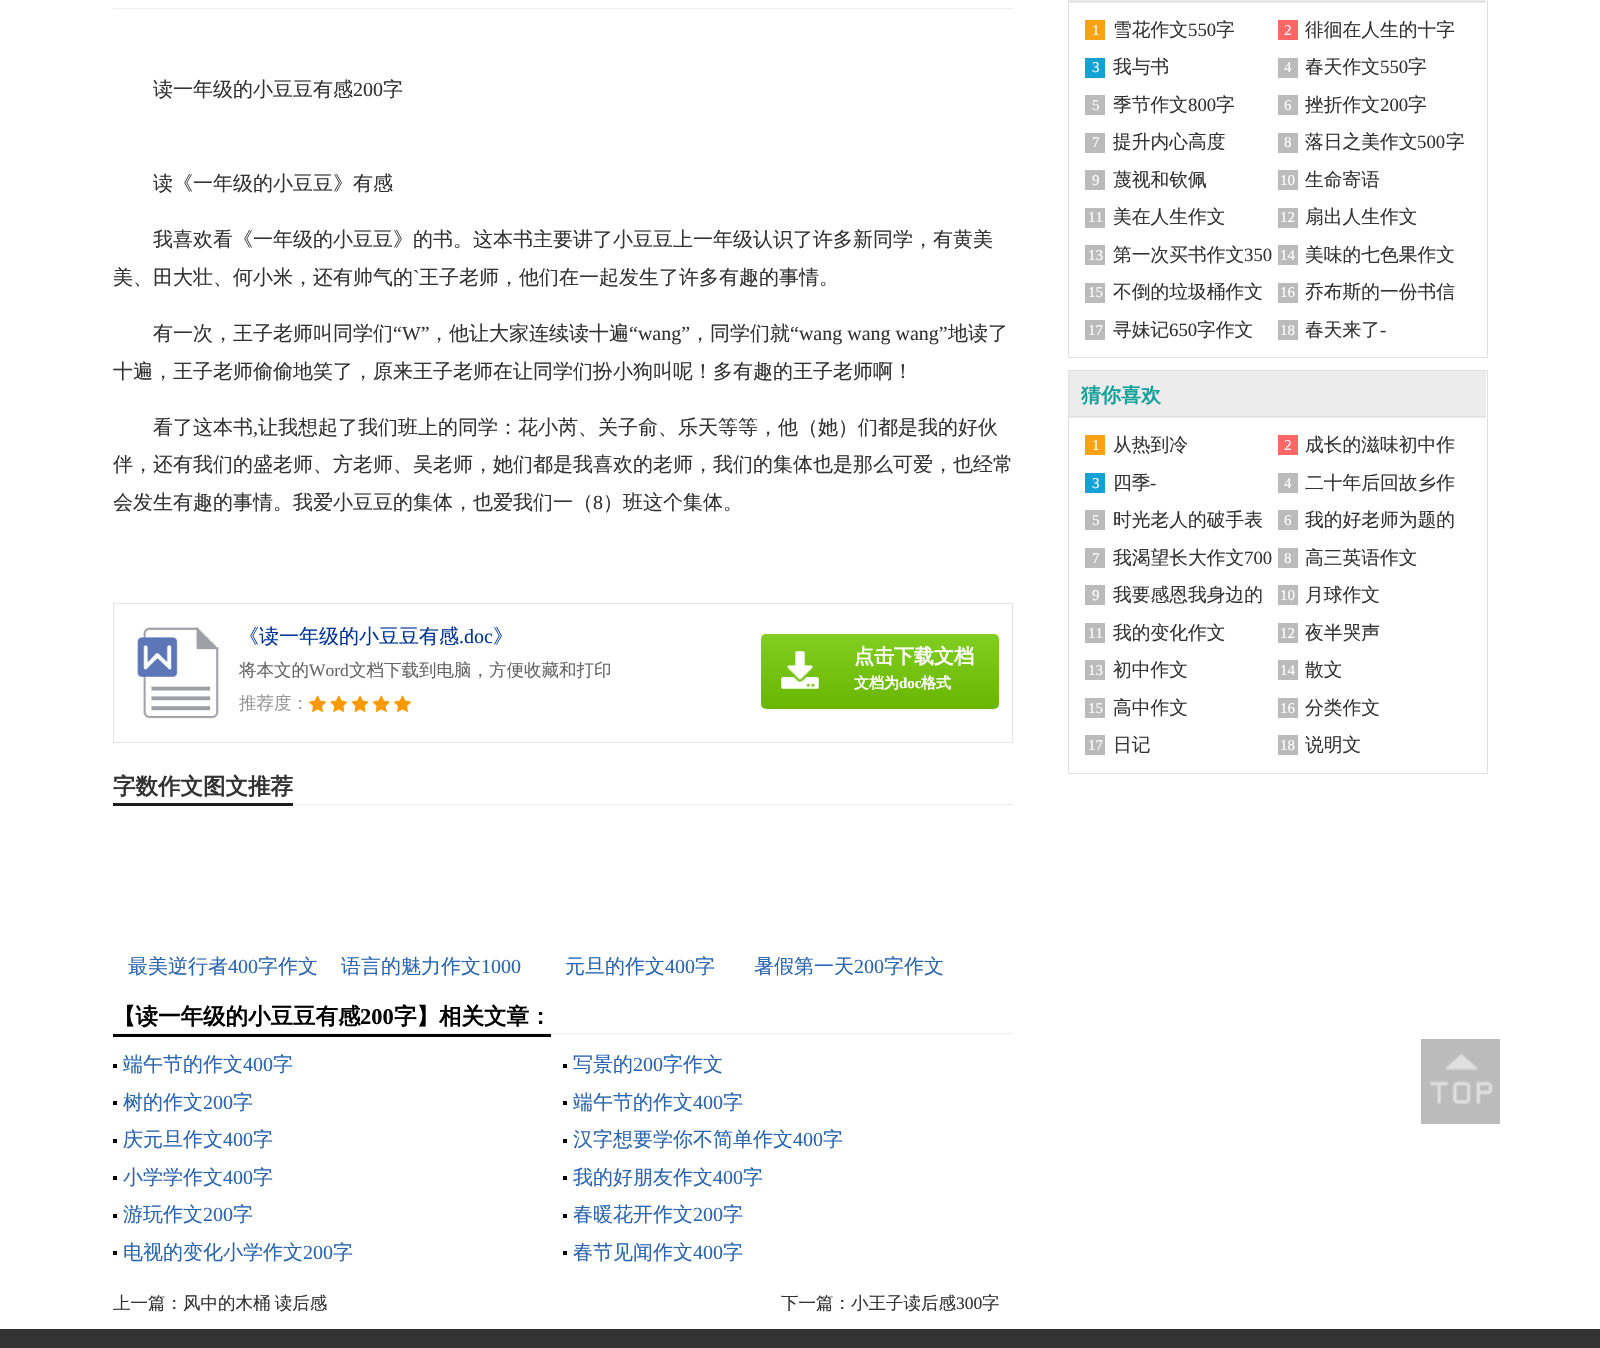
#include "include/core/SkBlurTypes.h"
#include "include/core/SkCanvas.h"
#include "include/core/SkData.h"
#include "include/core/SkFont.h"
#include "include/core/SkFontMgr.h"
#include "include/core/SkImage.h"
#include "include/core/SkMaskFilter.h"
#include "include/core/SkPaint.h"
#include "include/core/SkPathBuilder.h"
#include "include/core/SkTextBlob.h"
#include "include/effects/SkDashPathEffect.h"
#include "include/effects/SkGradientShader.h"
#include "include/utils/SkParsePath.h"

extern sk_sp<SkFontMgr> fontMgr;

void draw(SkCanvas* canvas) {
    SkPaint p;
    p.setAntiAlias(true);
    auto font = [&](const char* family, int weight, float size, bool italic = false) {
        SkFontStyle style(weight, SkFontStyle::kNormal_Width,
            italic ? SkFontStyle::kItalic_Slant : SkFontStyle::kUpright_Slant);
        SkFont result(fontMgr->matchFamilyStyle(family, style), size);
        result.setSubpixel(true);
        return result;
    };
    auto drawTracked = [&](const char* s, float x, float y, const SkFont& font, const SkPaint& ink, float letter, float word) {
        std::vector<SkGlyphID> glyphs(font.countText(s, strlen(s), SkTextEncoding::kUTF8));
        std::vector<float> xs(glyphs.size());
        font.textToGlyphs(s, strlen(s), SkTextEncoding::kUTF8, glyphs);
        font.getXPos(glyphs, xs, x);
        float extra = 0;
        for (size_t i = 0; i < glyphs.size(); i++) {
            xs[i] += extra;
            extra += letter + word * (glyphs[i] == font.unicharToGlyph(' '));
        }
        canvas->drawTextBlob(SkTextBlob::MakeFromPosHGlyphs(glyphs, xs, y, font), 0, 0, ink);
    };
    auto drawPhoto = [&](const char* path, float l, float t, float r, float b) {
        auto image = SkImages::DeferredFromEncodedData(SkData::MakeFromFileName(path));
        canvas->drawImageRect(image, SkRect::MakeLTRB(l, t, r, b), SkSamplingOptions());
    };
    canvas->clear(0xFFFFFFFF);
    p.setColor(0xFFEEEEEE);
    canvas->drawRect(SkRect::MakeLTRB(113, 8, 1013, 9), p);
    auto font1 = font("WenQuanYi Zen Hei", 500, 20);
    p.setColor(0xFF333333);
    canvas->drawString("读一年级的小豆豆有感", 153, 96, font1, p);
    auto font2 = font("Liberation Serif", 400, 20);
    canvas->drawString("200", 353, 96, font2, p);
    {
        const struct { const char* s; float x, y; } items[] = {
            {"字", 383, 96},
            {"读《一年级的小豆豆》有感", 153, 190},
            {"我喜欢看《一年级的小豆豆》的书。这本书主要讲了小豆豆上一年级认识了许多新同学，有黄美", 153, 246},
            {"美、田大壮、何小米，还有帅气的", 113, 284},
        };
        for (auto [s, x, y] : items) {
            canvas->drawString(s, x, y, font1, p);
        }
    }
    canvas->drawString("`", 413, 284, font2, p);
    canvas->drawString("王子老师，他们在一起发生了许多有趣的事情。", 419, 284, font1, p);
    canvas->drawString("有一次，王子老师叫同学们", 153, 340, font1, p);
    canvas->drawString("“W”", 393, 340, font2, p);
    canvas->drawString("，他让大家连续读十遍", 429, 340, font1, p);
    canvas->drawString("“wang”", 629, 340, font2, p);
    canvas->drawString("，同学们就", 690, 340, font1, p);
    canvas->drawString("“wang wang wang”", 790, 340, font2, p);
    {
        const struct { const char* s; float x, y; } items[] = {
            {"地读了", 948, 340},
            {"十遍，王子老师偷偷地笑了，原来王子老师在让同学们扮小狗叫呢！多有趣的王子老师啊！", 113, 378},
            {"看了这本书", 153, 434},
        };
        for (auto [s, x, y] : items) {
            canvas->drawString(s, x, y, font1, p);
        }
    }
    canvas->drawString(",", 253, 434, font2, p);
    {
        const struct { const char* s; float x, y; } items[] = {
            {"让我想起了我们班上的同学：花小芮、关子俞、乐天等等，他（她）们都是我的好伙", 258, 434},
            {"伴，还有我们的盛老师、方老师、吴老师，她们都是我喜欢的老师，我们的集体也是那么可爱，也经常", 113, 471},
            {"会发生有趣的事情。我爱小豆豆的集体，也爱我们一（", 113, 509},
        };
        for (auto [s, x, y] : items) {
            canvas->drawString(s, x, y, font1, p);
        }
    }
    canvas->drawString("8", 593, 509, font2, p);
    canvas->drawString("）班这个集体。", 603, 509, font1, p);
    p.setStyle(SkPaint::kStroke_Style);
    p.setStrokeWidth(1);
    p.setColor(0xFFE4E4E4);
    canvas->drawRect(SkRect::MakeLTRB(113.5f, 603.5f, 1012.5f, 742.5f), p);
    drawPhoto("media/1.png", 137, 627, 219, 719);
    p.setStyle(SkPaint::kFill_Style);
    p.setColor(0xFF003399);
    canvas->drawString("《读一年级的小豆豆有感", 239, 643, font1, p);
    canvas->drawString(".doc", 459, 643, font2, p);
    canvas->drawString("》", 493, 643, font1, p);
    auto font3 = font("WenQuanYi Zen Hei", 500, 17.5f);
    p.setColor(0xFF666666);
    canvas->drawString("将本文的", 239, 676, font3, p);
    auto font4 = font("Liberation Serif", 400, 17.5f);
    canvas->drawString("Word", 309, 676, font4, p);
    canvas->drawString("文档下载到电脑，方便收藏和打印", 349, 676, font3, p);
    p.setColor(0xFF999999);
    canvas->drawString("推荐度：", 239, 709, font3, p);
    drawPhoto("media/2.png", 308, 695, 327, 712);
    drawPhoto("media/3.png", 330, 695, 348, 712);
    drawPhoto("media/4.png", 351, 695, 369, 712);
    drawPhoto("media/5.png", 372, 695, 390, 712);
    drawPhoto("media/2.png", 393, 695, 412, 712);
    {
        const SkColor colors[] = {0xFF82CE21, 0xFF68B602};
        const float stops[] = {0, 1};
        const SkPoint ends[] = {{880, 634}, {880, 709}};
        p.setShader(SkGradientShader::MakeLinear(ends, colors, stops, 2, SkTileMode::kClamp));
        p.setAlpha(255);
    }
    canvas->drawRoundRect(SkRect::MakeLTRB(761, 634, 999, 709), 5, 5, p);
    drawPhoto("media/6.png", 781, 651, 819, 689);
    auto font5 = font("WenQuanYi Zen Hei", 700, 20);
    p.setShader(nullptr);
    p.setColor(0xFFFFFFFF);
    canvas->drawString("点击下载文档", 854, 663, font5, p);
    auto font6 = font("WenQuanYi Zen Hei", 700, 15);
    canvas->drawString("文档为", 854, 688, font6, p);
    auto font7 = font("Liberation Serif", 700, 15);
    canvas->drawString("doc", 899, 688, font7, p);
    canvas->drawString("格式", 921, 688, font6, p);
    p.setColor(0xFFEEEEEE);
    canvas->drawRect(SkRect::MakeLTRB(293, 804, 1013, 805), p);
    p.setColor(0xFF1C1C1C);
    canvas->drawRect(SkRect::MakeLTRB(113, 803, 293, 806), p);
    auto font8 = font("WenQuanYi Zen Hei", 700, 22.5f);
    p.setColor(0xFF333333);
    canvas->drawString("字数作文图文推荐", 113, 794, font8, p);
    p.setColor(0xFF2965B1);
    canvas->drawString("最美逆行者", 128, 973, font1, p);
    canvas->drawString("400", 228, 973, font2, p);
    canvas->drawString("字作文", 258, 973, font1, p);
    canvas->drawString("语言的魅力作文", 341, 973, font1, p);
    canvas->drawString("1000", 481, 973, font2, p);
    canvas->drawString("元旦的作文", 565, 973, font1, p);
    canvas->drawString("400", 665, 973, font2, p);
    canvas->drawString("字", 695, 973, font1, p);
    canvas->drawString("暑假第一天", 754, 973, font1, p);
    canvas->drawString("200", 854, 973, font2, p);
    canvas->drawString("字作文", 884, 973, font1, p);
    p.setColor(0xFFEEEEEE);
    canvas->drawRect(SkRect::MakeLTRB(113, 1033, 1013, 1034), p);
    p.setColor(0xFF000000);
    canvas->drawRect(SkRect::MakeLTRB(113, 1034, 551, 1037), p);
    canvas->drawString("【读一年级的小豆豆有感", 113, 1024, font8, p);
    auto font9 = font("Liberation Serif", 700, 22.5f);
    canvas->drawString("200", 360, 1024, font9, p);
    canvas->drawString("字】相关文章：", 394, 1024, font8, p);
    canvas->drawRect(SkRect::MakeLTRB(113, 1064, 117, 1068), p);
    p.setColor(0xFF2965B1);
    canvas->drawString("端午节的作文", 123, 1071, font1, p);
    canvas->drawString("400", 243, 1071, font2, p);
    canvas->drawString("字", 273, 1071, font1, p);
    p.setColor(0xFF000000);
    canvas->drawRect(SkRect::MakeLTRB(563, 1064, 567, 1068), p);
    p.setColor(0xFF2965B1);
    canvas->drawString("写景的", 573, 1071, font1, p);
    canvas->drawString("200", 633, 1071, font2, p);
    canvas->drawString("字作文", 663, 1071, font1, p);
    p.setColor(0xFF000000);
    canvas->drawRect(SkRect::MakeLTRB(113, 1101, 117, 1105), p);
    p.setColor(0xFF2965B1);
    canvas->drawString("树的作文", 123, 1109, font1, p);
    canvas->drawString("200", 203, 1109, font2, p);
    canvas->drawString("字", 233, 1109, font1, p);
    p.setColor(0xFF000000);
    canvas->drawRect(SkRect::MakeLTRB(563, 1101, 567, 1105), p);
    p.setColor(0xFF2965B1);
    canvas->drawString("端午节的作文", 573, 1109, font1, p);
    canvas->drawString("400", 693, 1109, font2, p);
    canvas->drawString("字", 723, 1109, font1, p);
    p.setColor(0xFF000000);
    canvas->drawRect(SkRect::MakeLTRB(113, 1139, 117, 1143), p);
    p.setColor(0xFF2965B1);
    canvas->drawString("庆元旦作文", 123, 1146, font1, p);
    canvas->drawString("400", 223, 1146, font2, p);
    canvas->drawString("字", 253, 1146, font1, p);
    p.setColor(0xFF000000);
    canvas->drawRect(SkRect::MakeLTRB(563, 1139, 567, 1143), p);
    p.setColor(0xFF2965B1);
    canvas->drawString("汉字想要学你不简单作文", 573, 1146, font1, p);
    canvas->drawString("400", 793, 1146, font2, p);
    canvas->drawString("字", 823, 1146, font1, p);
    p.setColor(0xFF000000);
    canvas->drawRect(SkRect::MakeLTRB(113, 1176, 117, 1180), p);
    p.setColor(0xFF2965B1);
    canvas->drawString("小学学作文", 123, 1184, font1, p);
    canvas->drawString("400", 223, 1184, font2, p);
    canvas->drawString("字", 253, 1184, font1, p);
    p.setColor(0xFF000000);
    canvas->drawRect(SkRect::MakeLTRB(563, 1176, 567, 1180), p);
    p.setColor(0xFF2965B1);
    canvas->drawString("我的好朋友作文", 573, 1184, font1, p);
    canvas->drawString("400", 713, 1184, font2, p);
    canvas->drawString("字", 743, 1184, font1, p);
    p.setColor(0xFF000000);
    canvas->drawRect(SkRect::MakeLTRB(113, 1214, 117, 1218), p);
    p.setColor(0xFF2965B1);
    canvas->drawString("游玩作文", 123, 1221, font1, p);
    canvas->drawString("200", 203, 1221, font2, p);
    canvas->drawString("字", 233, 1221, font1, p);
    p.setColor(0xFF000000);
    canvas->drawRect(SkRect::MakeLTRB(563, 1214, 567, 1218), p);
    p.setColor(0xFF2965B1);
    canvas->drawString("春暖花开作文", 573, 1221, font1, p);
    canvas->drawString("200", 693, 1221, font2, p);
    canvas->drawString("字", 723, 1221, font1, p);
    p.setColor(0xFF000000);
    canvas->drawRect(SkRect::MakeLTRB(113, 1251, 117, 1255), p);
    p.setColor(0xFF2965B1);
    canvas->drawString("电视的变化小学作文", 123, 1259, font1, p);
    canvas->drawString("200", 303, 1259, font2, p);
    canvas->drawString("字", 333, 1259, font1, p);
    p.setColor(0xFF000000);
    canvas->drawRect(SkRect::MakeLTRB(563, 1251, 567, 1255), p);
    p.setColor(0xFF2965B1);
    canvas->drawString("春节见闻作文", 573, 1259, font1, p);
    canvas->drawString("400", 693, 1259, font2, p);
    canvas->drawString("字", 723, 1259, font1, p);
    p.setColor(0xFF333333);
    canvas->drawString("上一篇：", 113, 1309, font3, p);
    drawTracked("风中的木桶 读后感", 183, 1309, font3, p, 0, -1);
    canvas->drawString("下一篇：小王子读后感", 781, 1309, font3, p);
    canvas->drawString("300", 956, 1309, font4, p);
    canvas->drawString("字", 982, 1309, font3, p);
    p.setStyle(SkPaint::kStroke_Style);
    p.setColor(0xFFE0E0E0);
    canvas->drawRect(SkRect::MakeLTRB(1068.5f, -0.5f, 1487.5f, 357.5f), p);
    p.setStyle(SkPaint::kFill_Style);
    {
        const struct { float l, t, r, b; SkColor color; } items[] = {
            {1069, 0, 1486, 3, 0xFFECECEC},
            {1069, 1, 1486, 2, 0xFFE0E0E0},
            {1085, 20, 1105, 40, 0xFFF8A214},
        };
        for (auto [l, t, r, b, color] : items) {
            p.setColor(color);
            canvas->drawRect(SkRect::MakeLTRB(l, t, r, b), p);
        }
    }
    auto font10 = font("Liberation Serif", 400, 15);
    p.setColor(0xFFFFFFFF);
    canvas->drawString("1", 1092, 35, font10, p);
    auto font11 = font("WenQuanYi Zen Hei", 500, 18.75f);
    p.setColor(0xFF333333);
    canvas->drawString("雪花作文", 1113, 36, font11, p);
    auto font12 = font("Liberation Serif", 400, 18.75f);
    canvas->drawString("550", 1188, 36, font12, p);
    canvas->drawString("字", 1216, 36, font11, p);
    p.setColor(0xFFFF6666);
    canvas->drawRect(SkRect::MakeLTRB(1278, 20, 1298, 40), p);
    p.setColor(0xFFFFFFFF);
    canvas->drawString("2", 1284, 35, font10, p);
    p.setColor(0xFF333333);
    canvas->drawString("徘徊在人生的十字", 1305, 36, font11, p);
    p.setColor(0xFF14A2D4);
    canvas->drawRect(SkRect::MakeLTRB(1085, 58, 1105, 78), p);
    p.setColor(0xFFFFFFFF);
    canvas->drawString("3", 1092, 72, font10, p);
    p.setColor(0xFF333333);
    canvas->drawString("我与书", 1113, 73, font11, p);
    p.setColor(0xFFBBBBBB);
    canvas->drawRect(SkRect::MakeLTRB(1278, 58, 1298, 78), p);
    p.setColor(0xFFFFFFFF);
    canvas->drawString("4", 1284, 72, font10, p);
    p.setColor(0xFF333333);
    canvas->drawString("春天作文", 1305, 73, font11, p);
    canvas->drawString("550", 1380, 73, font12, p);
    canvas->drawString("字", 1408, 73, font11, p);
    p.setColor(0xFFBBBBBB);
    canvas->drawRect(SkRect::MakeLTRB(1085, 95, 1105, 115), p);
    p.setColor(0xFFFFFFFF);
    canvas->drawString("5", 1092, 110, font10, p);
    p.setColor(0xFF333333);
    canvas->drawString("季节作文", 1113, 111, font11, p);
    canvas->drawString("800", 1188, 111, font12, p);
    canvas->drawString("字", 1216, 111, font11, p);
    p.setColor(0xFFBBBBBB);
    canvas->drawRect(SkRect::MakeLTRB(1278, 95, 1298, 115), p);
    p.setColor(0xFFFFFFFF);
    canvas->drawString("6", 1284, 110, font10, p);
    p.setColor(0xFF333333);
    canvas->drawString("挫折作文", 1305, 111, font11, p);
    canvas->drawString("200", 1380, 111, font12, p);
    canvas->drawString("字", 1408, 111, font11, p);
    p.setColor(0xFFBBBBBB);
    canvas->drawRect(SkRect::MakeLTRB(1085, 133, 1105, 153), p);
    p.setColor(0xFFFFFFFF);
    canvas->drawString("7", 1092, 147, font10, p);
    p.setColor(0xFF333333);
    canvas->drawString("提升内心高度", 1113, 148, font11, p);
    p.setColor(0xFFBBBBBB);
    canvas->drawRect(SkRect::MakeLTRB(1278, 133, 1298, 153), p);
    p.setColor(0xFFFFFFFF);
    canvas->drawString("8", 1284, 147, font10, p);
    p.setColor(0xFF333333);
    canvas->drawString("落日之美作文", 1305, 148, font11, p);
    canvas->drawString("500", 1417, 148, font12, p);
    canvas->drawString("字", 1446, 148, font11, p);
    p.setColor(0xFFBBBBBB);
    canvas->drawRect(SkRect::MakeLTRB(1085, 170, 1105, 190), p);
    p.setColor(0xFFFFFFFF);
    canvas->drawString("9", 1092, 185, font10, p);
    p.setColor(0xFF333333);
    canvas->drawString("蔑视和钦佩", 1113, 186, font11, p);
    p.setColor(0xFFBBBBBB);
    canvas->drawRect(SkRect::MakeLTRB(1278, 170, 1298, 190), p);
    p.setColor(0xFFFFFFFF);
    canvas->drawString("10", 1280, 185, font10, p);
    p.setColor(0xFF333333);
    canvas->drawString("生命寄语", 1305, 186, font11, p);
    p.setColor(0xFFBBBBBB);
    canvas->drawRect(SkRect::MakeLTRB(1085, 208, 1105, 228), p);
    p.setColor(0xFFFFFFFF);
    canvas->drawString("11", 1088, 222, font10, p);
    p.setColor(0xFF333333);
    canvas->drawString("美在人生作文", 1113, 223, font11, p);
    p.setColor(0xFFBBBBBB);
    canvas->drawRect(SkRect::MakeLTRB(1278, 208, 1298, 228), p);
    p.setColor(0xFFFFFFFF);
    canvas->drawString("12", 1280, 222, font10, p);
    p.setColor(0xFF333333);
    canvas->drawString("扇出人生作文", 1305, 223, font11, p);
    p.setColor(0xFFBBBBBB);
    canvas->drawRect(SkRect::MakeLTRB(1085, 245, 1105, 265), p);
    p.setColor(0xFFFFFFFF);
    canvas->drawString("13", 1088, 260, font10, p);
    p.setColor(0xFF333333);
    canvas->drawString("第一次买书作文", 1113, 261, font11, p);
    canvas->drawString("350", 1244, 261, font12, p);
    p.setColor(0xFFBBBBBB);
    canvas->drawRect(SkRect::MakeLTRB(1278, 245, 1298, 265), p);
    p.setColor(0xFFFFFFFF);
    canvas->drawString("14", 1280, 260, font10, p);
    p.setColor(0xFF333333);
    canvas->drawString("美味的七色果作文", 1305, 261, font11, p);
    p.setColor(0xFFBBBBBB);
    canvas->drawRect(SkRect::MakeLTRB(1085, 283, 1105, 303), p);
    p.setColor(0xFFFFFFFF);
    canvas->drawString("15", 1088, 297, font10, p);
    p.setColor(0xFF333333);
    canvas->drawString("不倒的垃圾桶作文", 1113, 298, font11, p);
    p.setColor(0xFFBBBBBB);
    canvas->drawRect(SkRect::MakeLTRB(1278, 283, 1298, 303), p);
    p.setColor(0xFFFFFFFF);
    canvas->drawString("16", 1280, 297, font10, p);
    p.setColor(0xFF333333);
    canvas->drawString("乔布斯的一份书信", 1305, 298, font11, p);
    p.setColor(0xFFBBBBBB);
    canvas->drawRect(SkRect::MakeLTRB(1085, 320, 1105, 340), p);
    p.setColor(0xFFFFFFFF);
    canvas->drawString("17", 1088, 335, font10, p);
    p.setColor(0xFF333333);
    canvas->drawString("寻妹记", 1113, 336, font11, p);
    canvas->drawString("650", 1169, 336, font12, p);
    canvas->drawString("字作文", 1197, 336, font11, p);
    p.setColor(0xFFBBBBBB);
    canvas->drawRect(SkRect::MakeLTRB(1278, 320, 1298, 340), p);
    p.setColor(0xFFFFFFFF);
    canvas->drawString("18", 1280, 335, font10, p);
    p.setColor(0xFF333333);
    canvas->drawString("春天来了", 1305, 336, font11, p);
    canvas->drawString("-", 1380, 336, font12, p);
    p.setStyle(SkPaint::kStroke_Style);
    p.setColor(0xFFE0E0E0);
    canvas->drawRect(SkRect::MakeLTRB(1068.5f, 370.5f, 1487.5f, 773.5f), p);
    p.setStyle(SkPaint::kFill_Style);
    p.setColor(0xFFECECEC);
    canvas->drawRect(SkRect::MakeLTRB(1069, 371, 1486, 418), p);
    p.setColor(0xFFE0E0E0);
    canvas->drawRect(SkRect::MakeLTRB(1069, 416, 1486, 417), p);
    p.setColor(0xFF12A19A);
    canvas->drawString("猜你喜欢", 1081, 402, font5, p);
    p.setColor(0xFFF8A214);
    canvas->drawRect(SkRect::MakeLTRB(1085, 435, 1105, 455), p);
    p.setColor(0xFFFFFFFF);
    canvas->drawString("1", 1092, 450, font10, p);
    p.setColor(0xFF333333);
    canvas->drawString("从热到冷", 1113, 451, font11, p);
    p.setColor(0xFFFF6666);
    canvas->drawRect(SkRect::MakeLTRB(1278, 435, 1298, 455), p);
    p.setColor(0xFFFFFFFF);
    canvas->drawString("2", 1284, 450, font10, p);
    p.setColor(0xFF333333);
    canvas->drawString("成长的滋味初中作", 1305, 451, font11, p);
    p.setColor(0xFF14A2D4);
    canvas->drawRect(SkRect::MakeLTRB(1085, 473, 1105, 493), p);
    p.setColor(0xFFFFFFFF);
    canvas->drawString("3", 1092, 488, font10, p);
    p.setColor(0xFF333333);
    canvas->drawString("四季", 1113, 489, font11, p);
    canvas->drawString("-", 1150, 489, font12, p);
    p.setColor(0xFFBBBBBB);
    canvas->drawRect(SkRect::MakeLTRB(1278, 473, 1298, 493), p);
    p.setColor(0xFFFFFFFF);
    canvas->drawString("4", 1284, 488, font10, p);
    p.setColor(0xFF333333);
    canvas->drawString("二十年后回故乡作", 1305, 489, font11, p);
    p.setColor(0xFFBBBBBB);
    canvas->drawRect(SkRect::MakeLTRB(1085, 510, 1105, 530), p);
    p.setColor(0xFFFFFFFF);
    canvas->drawString("5", 1092, 525, font10, p);
    p.setColor(0xFF333333);
    canvas->drawString("时光老人的破手表", 1113, 526, font11, p);
    p.setColor(0xFFBBBBBB);
    canvas->drawRect(SkRect::MakeLTRB(1278, 510, 1298, 530), p);
    p.setColor(0xFFFFFFFF);
    canvas->drawString("6", 1284, 525, font10, p);
    p.setColor(0xFF333333);
    canvas->drawString("我的好老师为题的", 1305, 526, font11, p);
    p.setColor(0xFFBBBBBB);
    canvas->drawRect(SkRect::MakeLTRB(1085, 548, 1105, 568), p);
    p.setColor(0xFFFFFFFF);
    canvas->drawString("7", 1092, 563, font10, p);
    p.setColor(0xFF333333);
    canvas->drawString("我渴望长大作文", 1113, 564, font11, p);
    canvas->drawString("700", 1244, 564, font12, p);
    p.setColor(0xFFBBBBBB);
    canvas->drawRect(SkRect::MakeLTRB(1278, 548, 1298, 568), p);
    p.setColor(0xFFFFFFFF);
    canvas->drawString("8", 1284, 563, font10, p);
    p.setColor(0xFF333333);
    canvas->drawString("高三英语作文", 1305, 564, font11, p);
    p.setColor(0xFFBBBBBB);
    canvas->drawRect(SkRect::MakeLTRB(1085, 585, 1105, 605), p);
    p.setColor(0xFFFFFFFF);
    canvas->drawString("9", 1092, 600, font10, p);
    p.setColor(0xFF333333);
    canvas->drawString("我要感恩我身边的", 1113, 601, font11, p);
    p.setColor(0xFFBBBBBB);
    canvas->drawRect(SkRect::MakeLTRB(1278, 585, 1298, 605), p);
    p.setColor(0xFFFFFFFF);
    canvas->drawString("10", 1280, 600, font10, p);
    p.setColor(0xFF333333);
    canvas->drawString("月球作文", 1305, 601, font11, p);
    p.setColor(0xFFBBBBBB);
    canvas->drawRect(SkRect::MakeLTRB(1085, 623, 1105, 643), p);
    p.setColor(0xFFFFFFFF);
    canvas->drawString("11", 1088, 638, font10, p);
    p.setColor(0xFF333333);
    canvas->drawString("我的变化作文", 1113, 639, font11, p);
    p.setColor(0xFFBBBBBB);
    canvas->drawRect(SkRect::MakeLTRB(1278, 623, 1298, 643), p);
    p.setColor(0xFFFFFFFF);
    canvas->drawString("12", 1280, 638, font10, p);
    p.setColor(0xFF333333);
    canvas->drawString("夜半哭声", 1305, 639, font11, p);
    p.setColor(0xFFBBBBBB);
    canvas->drawRect(SkRect::MakeLTRB(1085, 660, 1105, 680), p);
    p.setColor(0xFFFFFFFF);
    canvas->drawString("13", 1088, 675, font10, p);
    p.setColor(0xFF333333);
    canvas->drawString("初中作文", 1113, 676, font11, p);
    p.setColor(0xFFBBBBBB);
    canvas->drawRect(SkRect::MakeLTRB(1278, 660, 1298, 680), p);
    p.setColor(0xFFFFFFFF);
    canvas->drawString("14", 1280, 675, font10, p);
    p.setColor(0xFF333333);
    canvas->drawString("散文", 1305, 676, font11, p);
    p.setColor(0xFFBBBBBB);
    canvas->drawRect(SkRect::MakeLTRB(1085, 698, 1105, 718), p);
    p.setColor(0xFFFFFFFF);
    canvas->drawString("15", 1088, 713, font10, p);
    p.setColor(0xFF333333);
    canvas->drawString("高中作文", 1113, 714, font11, p);
    p.setColor(0xFFBBBBBB);
    canvas->drawRect(SkRect::MakeLTRB(1278, 698, 1298, 718), p);
    p.setColor(0xFFFFFFFF);
    canvas->drawString("16", 1280, 713, font10, p);
    p.setColor(0xFF333333);
    canvas->drawString("分类作文", 1305, 714, font11, p);
    p.setColor(0xFFBBBBBB);
    canvas->drawRect(SkRect::MakeLTRB(1085, 735, 1105, 755), p);
    p.setColor(0xFFFFFFFF);
    canvas->drawString("17", 1088, 750, font10, p);
    p.setColor(0xFF333333);
    canvas->drawString("日记", 1113, 751, font11, p);
    p.setColor(0xFFBBBBBB);
    canvas->drawRect(SkRect::MakeLTRB(1278, 735, 1298, 755), p);
    p.setColor(0xFFFFFFFF);
    canvas->drawString("18", 1280, 750, font10, p);
    p.setColor(0xFF333333);
    canvas->drawString("说明文", 1305, 751, font11, p);
    p.setColor(0xFFBBBBBB);
    canvas->drawRect(SkRect::MakeLTRB(1421, 1039, 1500, 1124), p);
    drawPhoto("media/7.png", 1429, 1053, 1493, 1104);
    p.setColor(0xFF333333);
    canvas->drawRect(SkRect::MakeLTRB(0, 1329, 1600, 1348), p);
}
